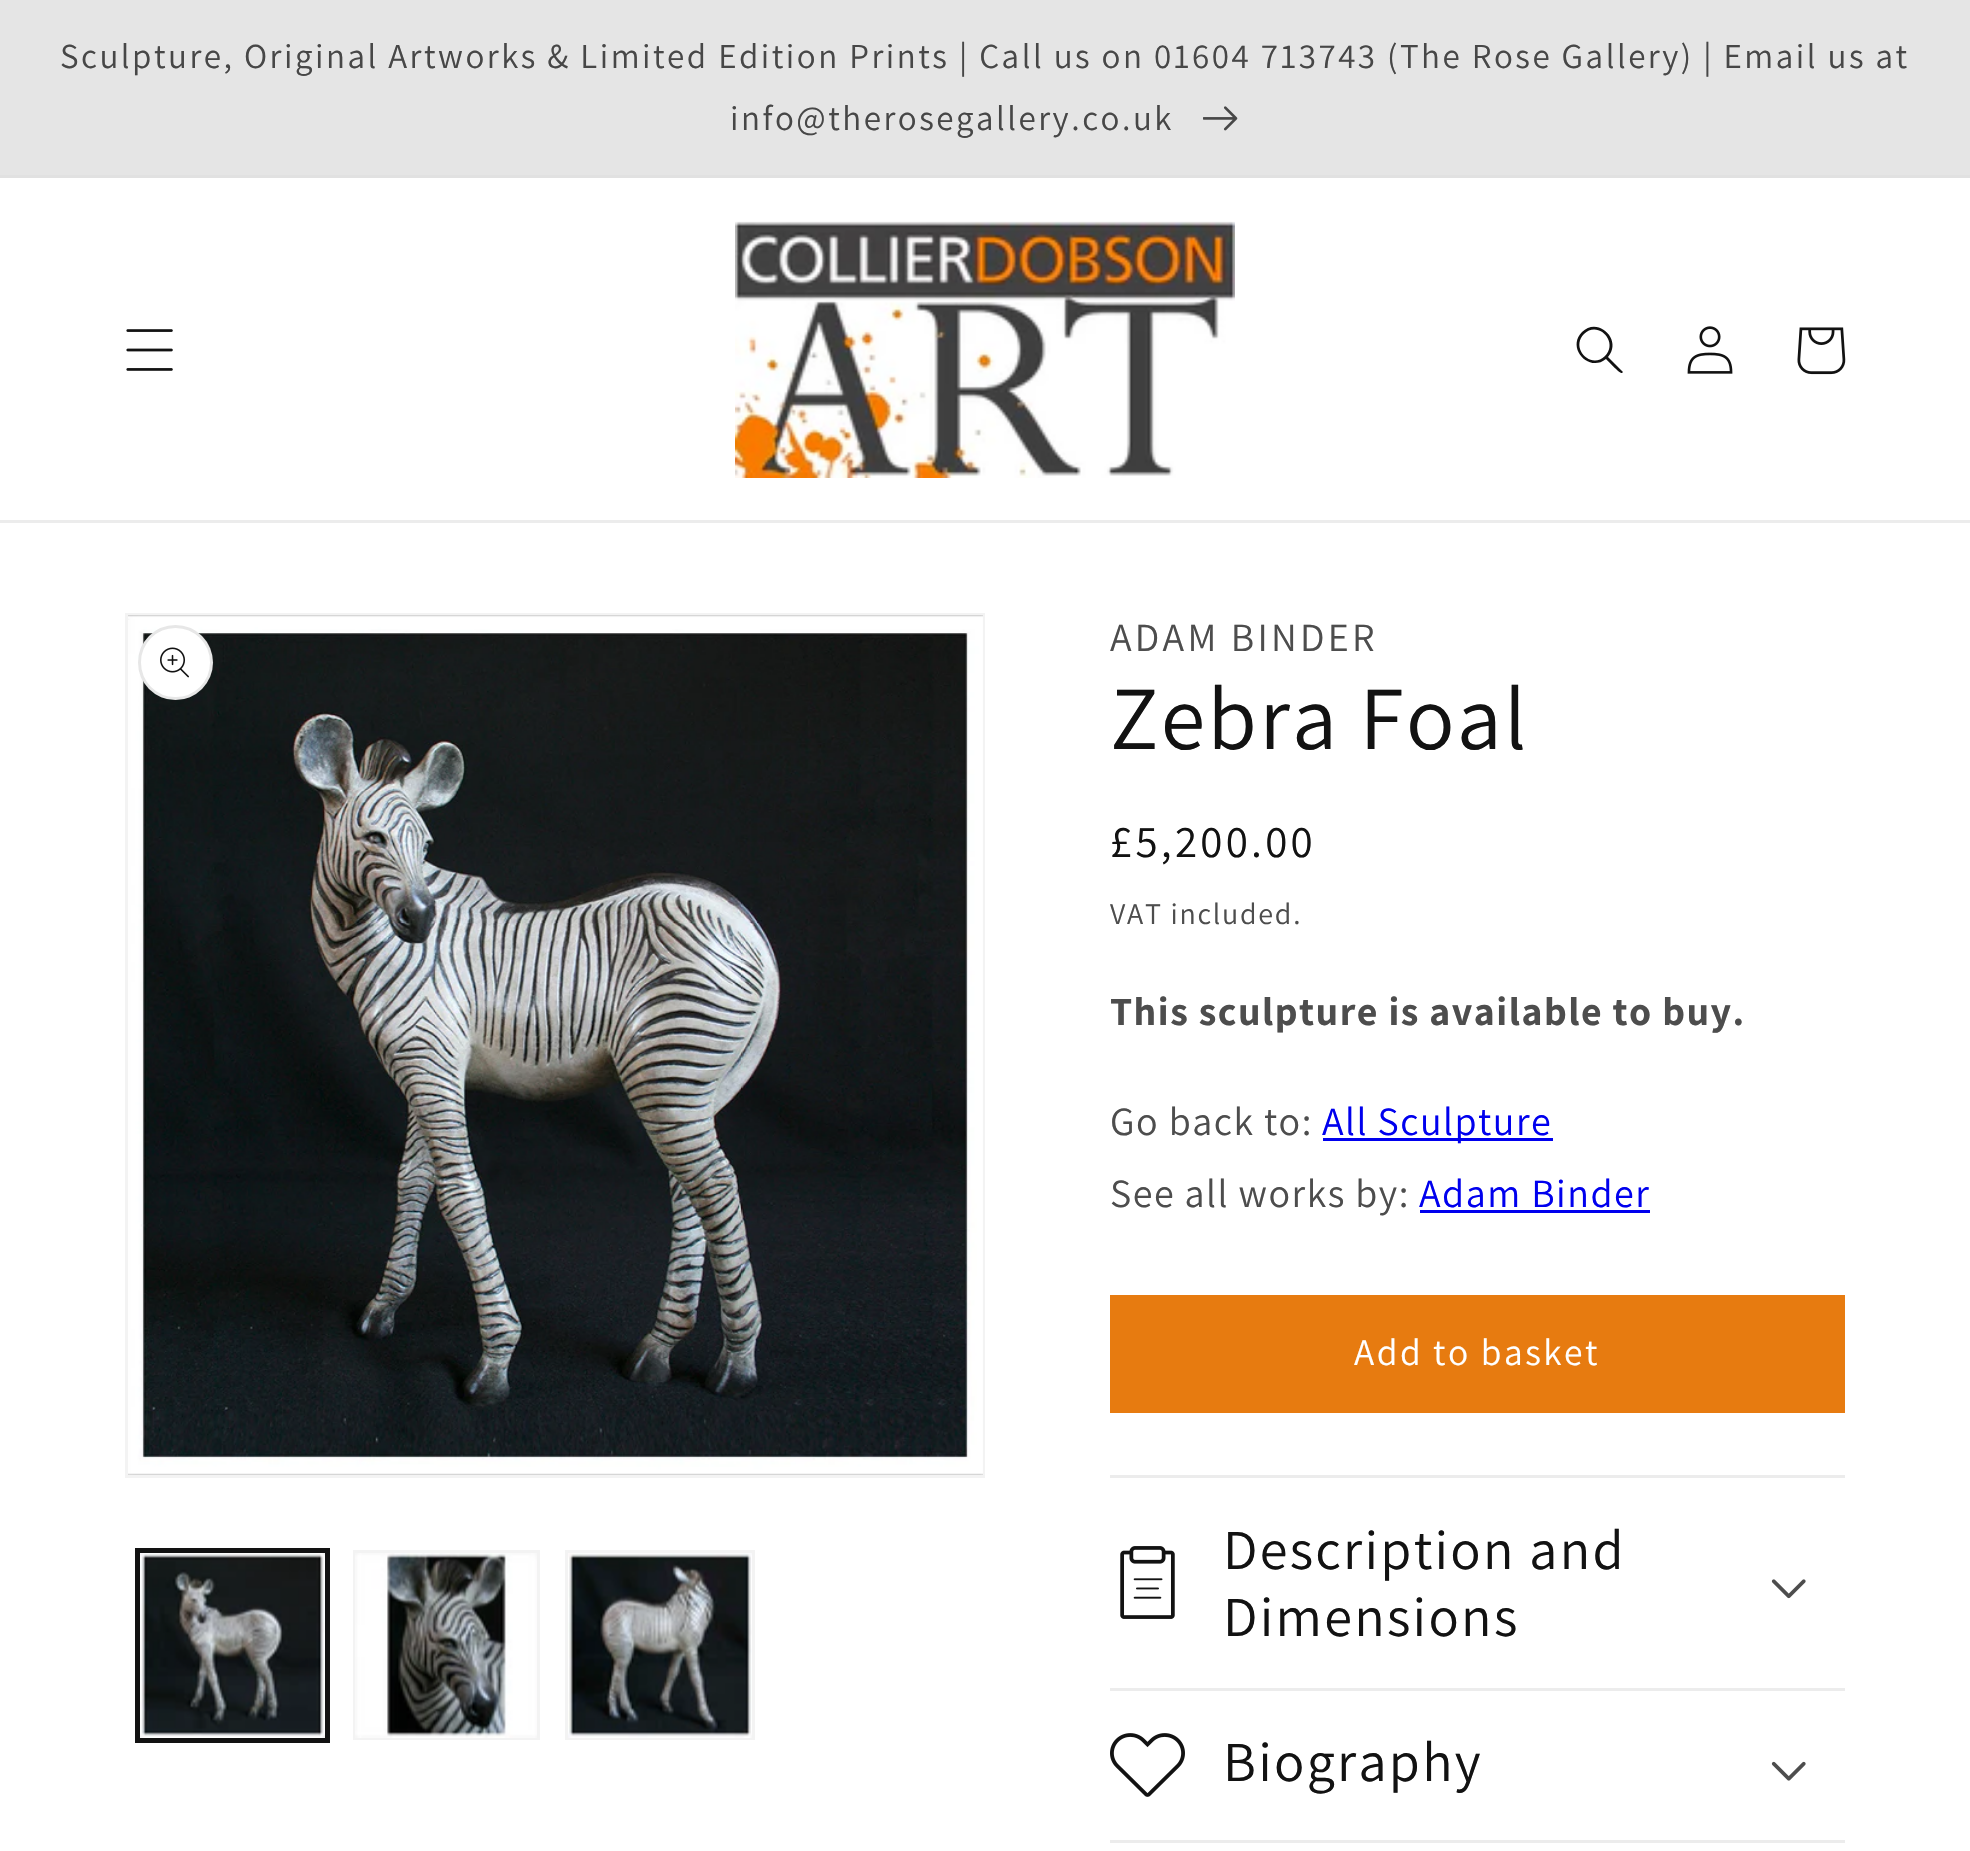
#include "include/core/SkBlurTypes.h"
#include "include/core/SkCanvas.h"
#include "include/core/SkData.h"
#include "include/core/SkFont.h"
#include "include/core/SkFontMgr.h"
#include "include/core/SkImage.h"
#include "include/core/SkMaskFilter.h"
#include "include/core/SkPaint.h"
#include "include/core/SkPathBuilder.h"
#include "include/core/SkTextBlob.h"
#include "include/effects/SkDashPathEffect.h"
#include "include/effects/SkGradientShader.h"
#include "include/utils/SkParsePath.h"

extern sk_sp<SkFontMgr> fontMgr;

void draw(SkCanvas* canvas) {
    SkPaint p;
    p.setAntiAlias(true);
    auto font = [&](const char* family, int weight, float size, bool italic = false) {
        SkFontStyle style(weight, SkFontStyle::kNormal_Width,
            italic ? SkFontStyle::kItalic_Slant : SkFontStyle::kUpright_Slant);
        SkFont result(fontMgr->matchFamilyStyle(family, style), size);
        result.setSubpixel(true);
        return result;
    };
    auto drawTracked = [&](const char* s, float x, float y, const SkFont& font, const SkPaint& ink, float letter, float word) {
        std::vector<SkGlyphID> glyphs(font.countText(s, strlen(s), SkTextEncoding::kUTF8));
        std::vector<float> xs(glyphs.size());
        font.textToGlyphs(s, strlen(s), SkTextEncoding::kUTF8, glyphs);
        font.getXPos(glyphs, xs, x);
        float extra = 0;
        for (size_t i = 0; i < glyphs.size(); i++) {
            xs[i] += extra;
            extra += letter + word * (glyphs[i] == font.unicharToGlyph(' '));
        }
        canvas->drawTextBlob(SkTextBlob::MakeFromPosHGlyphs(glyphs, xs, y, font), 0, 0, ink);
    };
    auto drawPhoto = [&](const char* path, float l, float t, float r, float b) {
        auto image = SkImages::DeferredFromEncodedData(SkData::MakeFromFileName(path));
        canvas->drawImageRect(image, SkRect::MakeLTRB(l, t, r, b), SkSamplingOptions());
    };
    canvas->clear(0xFFFFFFFF);
    p.setColor(0xFFE1E1E1);
    canvas->drawRect(SkRect::MakeLTRB(0, 175, 1970, 178), p);
    p.setColor(0xFFE5E5E5);
    canvas->drawRect(SkRect::MakeLTRB(0, 0, 1970, 175), p);
    auto font1 = font("Assistant", 400, 35);
    p.setColor(0xFF474747);
    drawTracked("Sculpture, Original Artworks & Limited Edition Prints | Call us on 01604 713743 (The Rose Gallery) | Email us at", 60, 68, font1, p, 2.5f, 0);
    drawTracked("info@therosegallery.co.uk", 730, 130, font1, p, 2.5f, 0);
    drawPhoto("media/1.png", 1203, 106, 1238, 131);
    p.setColor(0xFFECECEC);
    canvas->drawRect(SkRect::MakeLTRB(0, 520, 1970, 523), p);
    drawPhoto("media/2.png", 126, 329, 173, 371);
    drawPhoto("media/3.png", 735, 221, 1235, 478);
    p.setColor(0xFF121212);
    canvas->drawPath(SkPathBuilder(SkPathFillType::kEvenOdd).moveTo(1605, 356).cubicTo(1591, 370, 1570, 348, 1584, 334).cubicTo(1598, 320, 1619, 342, 1605, 356).close().moveTo(1606, 359).cubicTo(1589, 373, 1566, 348, 1582, 332).cubicTo(1598, 316, 1623, 340, 1608, 357).lineTo(1623, 372).lineTo(1622, 373).cubicTo(1620, 374, 1608, 361, 1606, 359).close().detach(), p);
    drawPhoto("media/4.png", 1687, 326, 1733, 374);
    drawPhoto("media/5.png", 1797, 327, 1846, 375);
    p.setStyle(SkPaint::kStroke_Style);
    p.setStrokeWidth(3);
    p.setColor(0xFFF3F3F3);
    canvas->drawRect(SkRect::MakeLTRB(126.5f, 614.5f, 983.5f, 1476.5f), p);
    drawPhoto("media/6.png", 128, 615, 983, 1475);
    p.setStyle(SkPaint::kFill_Style);
    p.setColor(0xFFFFFFFF);
    canvas->drawCircle(175.5f, 662.5f, 37.5f, p);
    p.setStyle(SkPaint::kStroke_Style);
    p.setColor(0x1A121212);
    canvas->drawCircle(175.5f, 662.5f, 36, p);
    drawPhoto("media/7.png", 160, 647, 189, 678);
    p.setColor(0xFF121212);
    canvas->drawRect(SkRect::MakeLTRB(136.5f, 1549.5f, 328.5f, 1741.5f), p);
    canvas->drawRect(SkRect::MakeLTRB(139.5f, 1551.5f, 326.5f, 1738.5f), p);
    drawPhoto("media/8.png", 140, 1553, 325, 1738);
    p.setColor(0xFFF3F3F3);
    canvas->drawRect(SkRect::MakeLTRB(354.5f, 1551.5f, 538.5f, 1738.5f), p);
    drawPhoto("media/9.png", 355, 1553, 537, 1738);
    canvas->drawRect(SkRect::MakeLTRB(566.5f, 1551.5f, 753.5f, 1738.5f), p);
    drawPhoto("media/10.png", 568, 1553, 752, 1738);
    auto font2 = font("Assistant", 400, 40);
    p.setStyle(SkPaint::kFill_Style);
    p.setColor(0xFF4D4D4D);
    drawTracked("ADAM BINDER", 1110, 651, font2, p, 3.25f, 0);
    auto font3 = font("Assistant", 400, 90);
    p.setColor(0xFF121212);
    drawTracked("Zebra Foal", 1110, 749, font3, p, 2.25f, 0);
    auto font4 = font("Assistant", 400, 45);
    drawTracked("£5,200.00", 1110, 857, font4, p, 3.25f, 0);
    auto font5 = font("Assistant", 400, 30);
    p.setColor(0xFF4D4D4D);
    drawTracked("VAT included.", 1110, 924, font5, p, 1.75f, 0);
    auto font6 = font("Assistant", 700, 40);
    drawTracked("This sculpture is available to buy.", 1110, 1025, font6, p, 1.5f, 0);
    drawTracked("Go back to:", 1110, 1135, font2, p, 1.5f, 0);
    p.setColor(0xFF0000EE);
    canvas->drawRect(SkRect::MakeLTRB(1323, 1138, 1553, 1141), p);
    drawTracked("All Sculpture", 1322, 1135, font2, p, 1.5f, 0);
    p.setColor(0xFF4D4D4D);
    drawTracked("See all works by:", 1110, 1207, font2, p, 1.5f, 0);
    p.setColor(0xFF0000EE);
    drawTracked("Adam Binder", 1419, 1207, font2, p, 1.5f, 0);
    canvas->drawRect(SkRect::MakeLTRB(1420, 1210, 1650, 1213), p);
    p.setColor(0xFFE77B10);
    canvas->drawRect(SkRect::MakeLTRB(1110, 1295, 1845, 1413), p);
    auto font7 = font("Assistant", 400, 37.5f);
    p.setColor(0xFFFFFFFF);
    drawTracked("Add to basket", 1354, 1365, font7, p, 2.5f, 0);
    p.setColor(0xFFECECEC);
    canvas->drawRect(SkRect::MakeLTRB(1110, 1475, 1845, 1478), p);
    canvas->drawRect(SkRect::MakeLTRB(1110, 1688, 1845, 1691), p);
    drawPhoto("media/11.png", 1120, 1546, 1175, 1619);
    auto font8 = font("Assistant", 400, 56.25f);
    p.setColor(0xFF121212);
    drawTracked("Description and", 1223, 1569, font8, p, 2.25f, 0);
    drawTracked("Dimensions", 1223, 1636, font8, p, 2.25f, 0);
    drawPhoto("media/12.png", 1771, 1579, 1806, 1599);
    p.setColor(0xFFECECEC);
    canvas->drawRect(SkRect::MakeLTRB(1110, 1840, 1845, 1843), p);
    drawPhoto("media/13.png", 1110, 1733, 1185, 1797);
    p.setColor(0xFF121212);
    drawTracked("Biography", 1223, 1781, font8, p, 2.25f, 0);
    drawPhoto("media/14.png", 1771, 1761, 1806, 1781);
}
